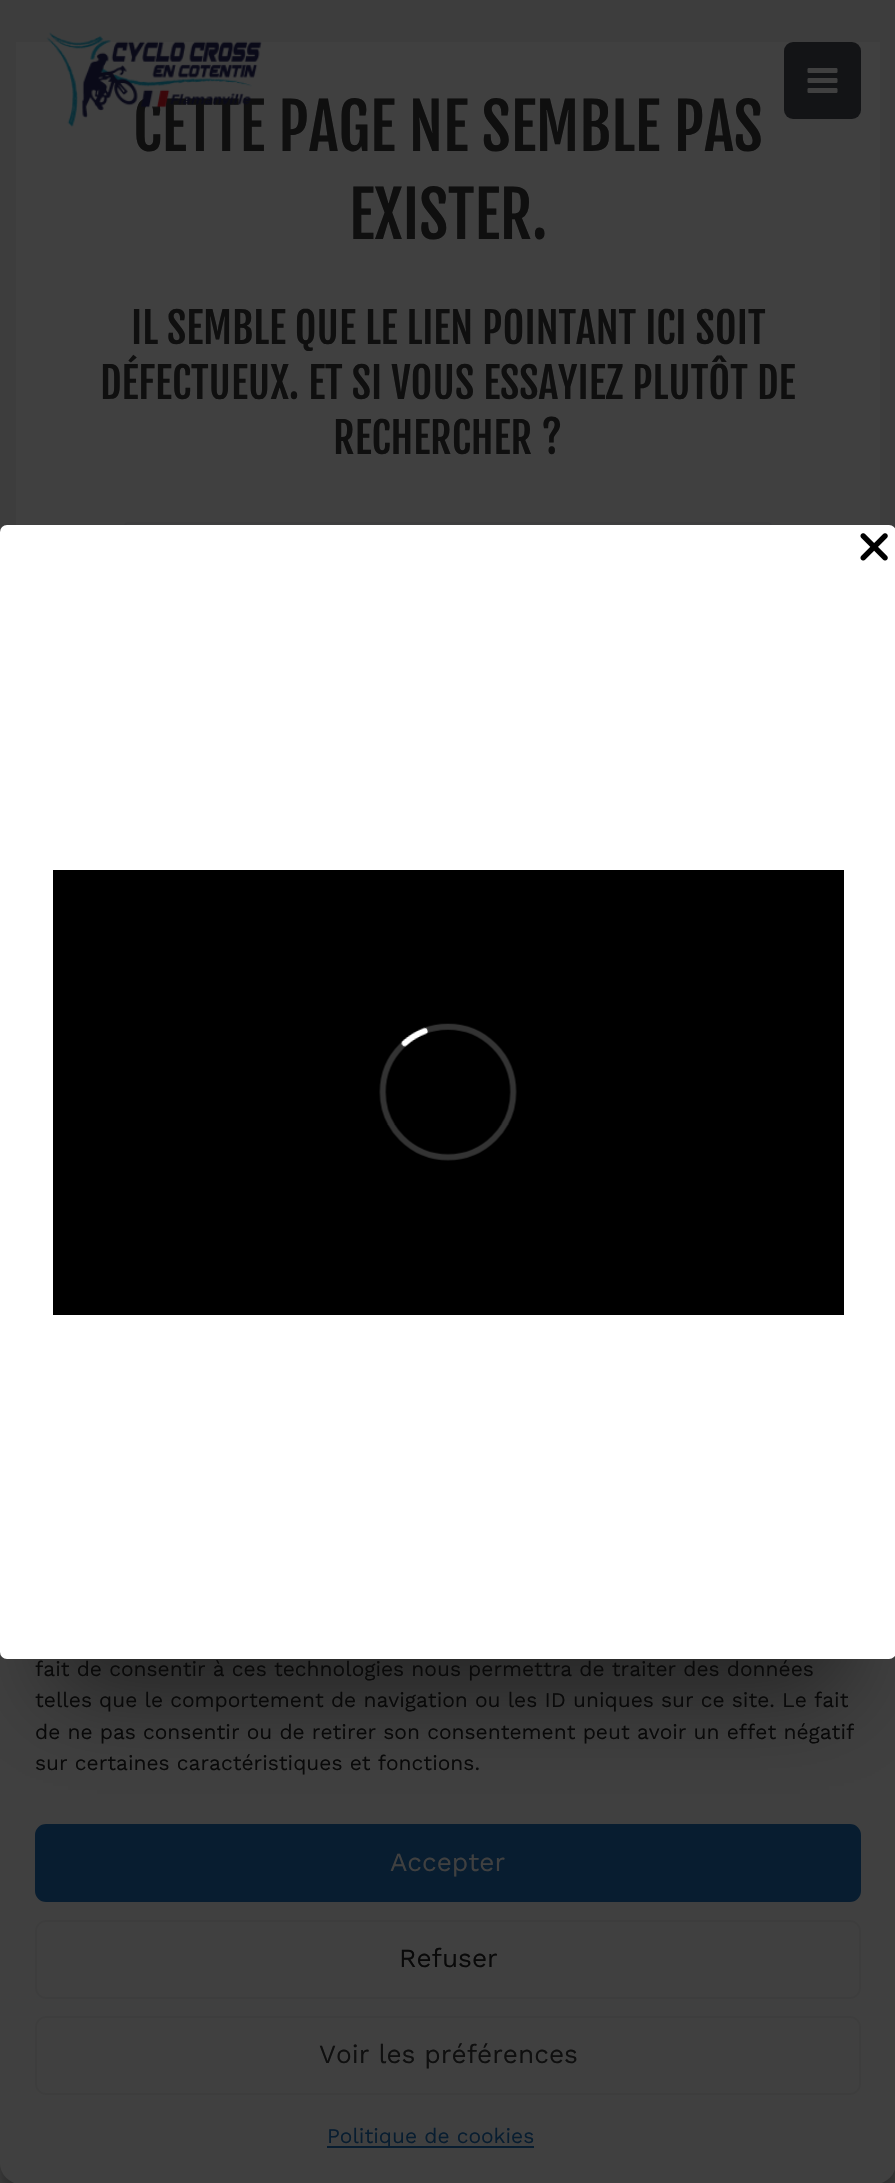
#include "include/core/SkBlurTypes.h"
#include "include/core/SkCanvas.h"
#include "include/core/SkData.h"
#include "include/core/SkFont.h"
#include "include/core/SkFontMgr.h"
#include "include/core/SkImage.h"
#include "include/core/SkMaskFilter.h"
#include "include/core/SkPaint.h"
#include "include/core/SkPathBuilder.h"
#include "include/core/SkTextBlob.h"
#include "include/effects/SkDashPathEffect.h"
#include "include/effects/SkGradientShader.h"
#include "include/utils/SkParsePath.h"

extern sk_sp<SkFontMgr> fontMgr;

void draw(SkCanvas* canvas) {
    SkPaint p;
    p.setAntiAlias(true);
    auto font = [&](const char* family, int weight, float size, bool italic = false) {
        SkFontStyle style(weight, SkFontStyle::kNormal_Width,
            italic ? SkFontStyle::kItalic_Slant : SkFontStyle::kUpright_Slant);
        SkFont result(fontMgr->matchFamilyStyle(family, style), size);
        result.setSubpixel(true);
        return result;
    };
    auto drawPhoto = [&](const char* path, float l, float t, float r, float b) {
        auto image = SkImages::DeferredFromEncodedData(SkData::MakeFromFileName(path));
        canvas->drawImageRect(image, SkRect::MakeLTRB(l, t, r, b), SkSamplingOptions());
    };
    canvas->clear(0xFF3D3D3D);
    p.setColor(0xFF404040);
    canvas->drawRect(SkRect::MakeLTRB(16, 42, 880, 525), p);
    auto font1 = font("Fjalla One", 400, 63);
    p.setColor(0xFF0F0F0F);
    canvas->drawString("CETTE PAGE NE SEMBLE PAS", 133, 151, font1, p);
    drawPhoto("media/1.png", 46, 32, 262, 127);
    p.setColor(0xFF131416);
    canvas->drawRoundRect(SkRect::MakeLTRB(784, 42, 861, 119), 9, 9, p);
    drawPhoto("media/2.png", 807, 68, 838, 93);
    p.setColor(0xFF0F0F0F);
    canvas->drawString("EXISTER.", 349, 239, font1, p);
    auto font2 = font("Fjalla One", 400, 42);
    {
        const struct { const char* s; float x, y; } items[] = {
            {"IL SEMBLE QUE LE LIEN POINTANT ICI SOIT", 131, 344},
            {"DÉFECTUEUX. ET SI VOUS ESSAYIEZ PLUTÔT DE", 100, 399},
            {"RECHERCHER ?", 333, 454},
        };
        for (auto [s, x, y] : items) {
            canvas->drawString(s, x, y, font2, p);
        }
    }
    p.setStyle(SkPaint::kStroke_Style);
    p.setStrokeWidth(2);
    p.setColor(0xFF3D3D3E);
    canvas->drawRoundRect(SkRect::MakeLTRB(125, 523, 771, 591), 3, 3, p);
    p.setStyle(SkPaint::kFill_Style);
    p.setColor(0x3B000000);
    p.setMaskFilter(SkMaskFilter::MakeBlur(kNormal_SkBlurStyle, 5));
    canvas->drawRoundRect(SkRect::MakeLTRB(0, 1470, 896, 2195), 21, 21, p);
    p.setMaskFilter(nullptr);
    p.setColor(0xFF404040);
    canvas->drawRoundRect(SkRect::MakeLTRB(0, 1460, 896, 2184), 21, 21, p);
    p.setColor(0xFF081D30);
    canvas->drawRoundRect(SkRect::MakeLTRB(36, 1825, 860, 1901), 10, 10, p);
    p.setStyle(SkPaint::kStroke_Style);
    canvas->drawRoundRect(SkRect::MakeLTRB(36, 1825, 860, 1901), 10, 10, p);
    p.setStyle(SkPaint::kFill_Style);
    p.setColor(0x70000000);
    p.setMaskFilter(SkMaskFilter::MakeBlur(kNormal_SkBlurStyle, 44));
    canvas->drawRect(SkRect::MakeLTRB(53, 665, 844, 1694), p);
    p.setMaskFilter(nullptr);
    p.setColor(0xFFFFFFFF);
    canvas->drawRoundRect(SkRect::MakeLTRB(0, 525, 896, 1659), 7, 7, p);
    drawPhoto("media/3.png", 53, 870, 844, 1315);
    drawPhoto("media/4.png", 860, 533, 888, 561);
    auto font3 = font("Work Sans", 400, 21);
    p.setColor(0xFF090909);
    {
        const struct { const char* s; float x, y; } items[] = {
            {"fait de consentir à ces technologies nous permettra de traiter des données", 35, 1676},
            {"telles que le comportement de navigation ou les ID uniques sur ce site. Le fait", 35, 1707},
            {"de ne pas consentir ou de retirer son consentement peut avoir un effet négatif", 35, 1739},
            {"sur certaines caractéristiques et fonctions.", 35, 1770},
        };
        for (auto [s, x, y] : items) {
            canvas->drawString(s, x, y, font3, p);
        }
    }
    auto font4 = font("Work Sans", 400, 26.25f);
    p.setColor(0xFF404040);
    canvas->drawString("Accepter", 390, 1871, font4, p);
    p.setStyle(SkPaint::kStroke_Style);
    p.setColor(0xFF3D3D3D);
    canvas->drawRoundRect(SkRect::MakeLTRB(36, 1921, 860, 1998), 10, 10, p);
    p.setStyle(SkPaint::kFill_Style);
    p.setColor(0xFF090909);
    canvas->drawString("Refuser", 399, 1967, font4, p);
    p.setStyle(SkPaint::kStroke_Style);
    p.setColor(0xFF3D3D3D);
    canvas->drawRoundRect(SkRect::MakeLTRB(36, 2017, 860, 2094), 10, 10, p);
    p.setStyle(SkPaint::kFill_Style);
    p.setColor(0xFF0F0F0F);
    canvas->drawString("Voir les préférences", 319, 2063, font4, p);
    p.setColor(0xFF081D30);
    canvas->drawRect(SkRect::MakeLTRB(327, 2146, 534, 2148), p);
    canvas->drawString("Politique de cookies", 327, 2143, font3, p);
}
